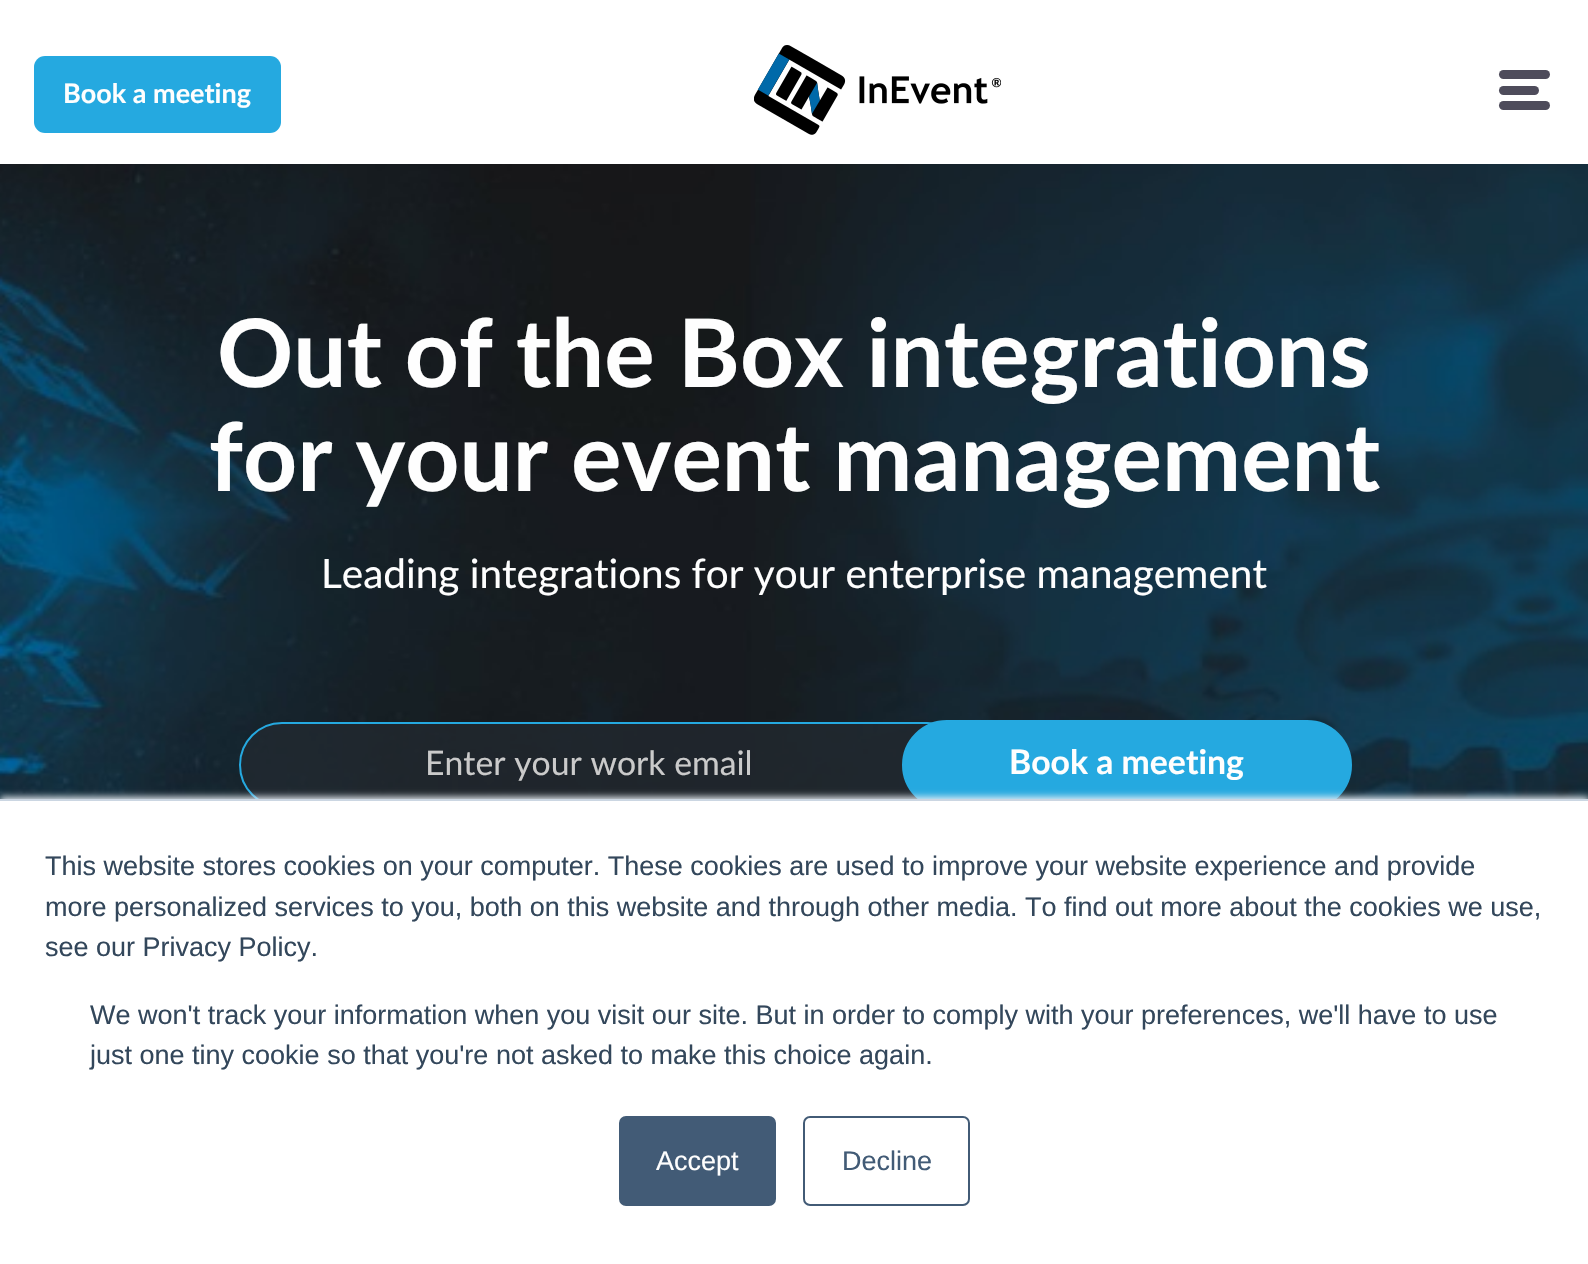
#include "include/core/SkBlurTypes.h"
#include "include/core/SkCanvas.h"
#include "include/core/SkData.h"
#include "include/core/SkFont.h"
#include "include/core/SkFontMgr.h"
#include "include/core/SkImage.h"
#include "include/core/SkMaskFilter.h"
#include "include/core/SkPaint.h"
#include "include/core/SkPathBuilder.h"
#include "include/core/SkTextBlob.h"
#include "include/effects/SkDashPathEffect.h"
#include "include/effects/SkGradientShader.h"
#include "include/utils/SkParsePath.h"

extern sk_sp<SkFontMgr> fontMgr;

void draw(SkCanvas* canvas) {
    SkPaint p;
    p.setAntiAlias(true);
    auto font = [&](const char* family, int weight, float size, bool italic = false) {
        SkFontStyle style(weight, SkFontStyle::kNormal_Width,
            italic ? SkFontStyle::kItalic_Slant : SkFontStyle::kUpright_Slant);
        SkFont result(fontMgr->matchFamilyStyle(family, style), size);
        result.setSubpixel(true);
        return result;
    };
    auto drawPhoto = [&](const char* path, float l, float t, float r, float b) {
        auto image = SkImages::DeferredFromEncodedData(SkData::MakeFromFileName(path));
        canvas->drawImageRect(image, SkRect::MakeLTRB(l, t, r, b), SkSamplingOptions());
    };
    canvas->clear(0xFFFFFFFF);
    p.setColor(0xFF25A9E0);
    canvas->drawRoundRect(SkRect::MakeLTRB(34, 56, 281, 133), 11, 11, p);
    auto font1 = font("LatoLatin", 700, 27);
    p.setColor(0xFFFEFEFE);
    canvas->drawString("Book a meeting", 63, 103, font1, p);
    drawPhoto("media/1.png", 754, 45, 1001, 135);
    p.setColor(0xFF4E4C5B);
    canvas->drawRoundRect(SkRect::MakeLTRB(1499, 70, 1550, 79), 4.5f, 4.5f, p);
    canvas->drawRoundRect(SkRect::MakeLTRB(1499, 86, 1539, 95), 4.5f, 4.5f, p);
    canvas->drawRoundRect(SkRect::MakeLTRB(1499, 101, 1550, 110), 4.5f, 4.5f, p);
    drawPhoto("media/2.png", 0, 164, 1588, 799);
    auto font2 = font("LatoLatin", 700, 94.5f);
    p.setColor(0xFFFEFEFE);
    canvas->drawString("Out of the Box integrations", 217, 387, font2, p);
    canvas->drawString("for your event management", 209, 491, font2, p);
    auto font3 = font("LatoLatin", 400, 40.5f);
    canvas->drawString("Leading integrations for your enterprise management", 321, 588, font3, p);
    p.setColor(0xB3222930);
    canvas->drawRoundRect(SkRect::MakeLTRB(240, 723, 969, 807), 42, 42, p);
    p.setStyle(SkPaint::kStroke_Style);
    p.setStrokeWidth(2);
    p.setColor(0xFF25A9E0);
    canvas->drawRoundRect(SkRect::MakeLTRB(240, 723, 969, 807), 42, 42, p);
    auto font4 = font("LatoLatin", 400, 33.75f);
    p.setStyle(SkPaint::kFill_Style);
    p.setColor(0xFFCACACA);
    canvas->drawString("Enter your work email", 425, 775, font4, p);
    p.setColor(0xFF25A9E0);
    canvas->drawRoundRect(SkRect::MakeLTRB(903, 721, 1351, 809), 44, 44, p);
    p.setStyle(SkPaint::kStroke_Style);
    canvas->drawRoundRect(SkRect::MakeLTRB(903, 721, 1351, 809), 44, 44, p);
    auto font5 = font("LatoLatin", 700, 33.75f);
    p.setStyle(SkPaint::kFill_Style);
    p.setColor(0xFFFEFEFE);
    canvas->drawString("Book a meeting", 1009, 774, font5, p);
    p.setColor(0xFFEAF0F6);
    p.setMaskFilter(SkMaskFilter::MakeBlur(kNormal_SkBlurStyle, 3.5f));
    canvas->drawRect(SkRect::MakeLTRB(0, 797, 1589, 1262), p);
    p.setMaskFilter(nullptr);
    p.setColor(0xFFFFFFFF);
    canvas->drawRect(SkRect::MakeLTRB(0, 801, 1588, 1264), p);
    p.setColor(0xFFCBD6E2);
    canvas->drawRect(SkRect::MakeLTRB(0, 799, 1588, 801), p);
    auto font6 = font("Liberation Sans", 400, 27);
    p.setColor(0xFF33475B);
    {
        const struct { const char* s; float x, y; } items[] = {
            {"This website stores cookies on your computer. These cookies are used to improve your website experience and provide", 45, 875},
            {"more personalized services to you, both on this website and through other media. To find out more about the cookies we use,", 45, 916},
            {"see our Privacy Policy.", 45, 956},
            {"We won't track your information when you visit our site. But in order to comply with your preferences, we'll have to use", 90, 1024},
            {"just one tiny cookie so that you're not asked to make this choice again.", 90, 1064},
        };
        for (auto [s, x, y] : items) {
            canvas->drawString(s, x, y, font6, p);
        }
    }
    p.setColor(0xFF425B76);
    canvas->drawRoundRect(SkRect::MakeLTRB(620, 1117, 775, 1205), 6, 6, p);
    p.setStyle(SkPaint::kStroke_Style);
    canvas->drawRoundRect(SkRect::MakeLTRB(620, 1117, 775, 1205), 6, 6, p);
    p.setStyle(SkPaint::kFill_Style);
    p.setColor(0xFFFEFEFE);
    canvas->drawString("Accept", 656, 1170, font6, p);
    p.setStyle(SkPaint::kStroke_Style);
    p.setColor(0xFF425B76);
    canvas->drawRoundRect(SkRect::MakeLTRB(804, 1117, 969, 1205), 6, 6, p);
    p.setStyle(SkPaint::kFill_Style);
    canvas->drawString("Decline", 842, 1170, font6, p);
}
